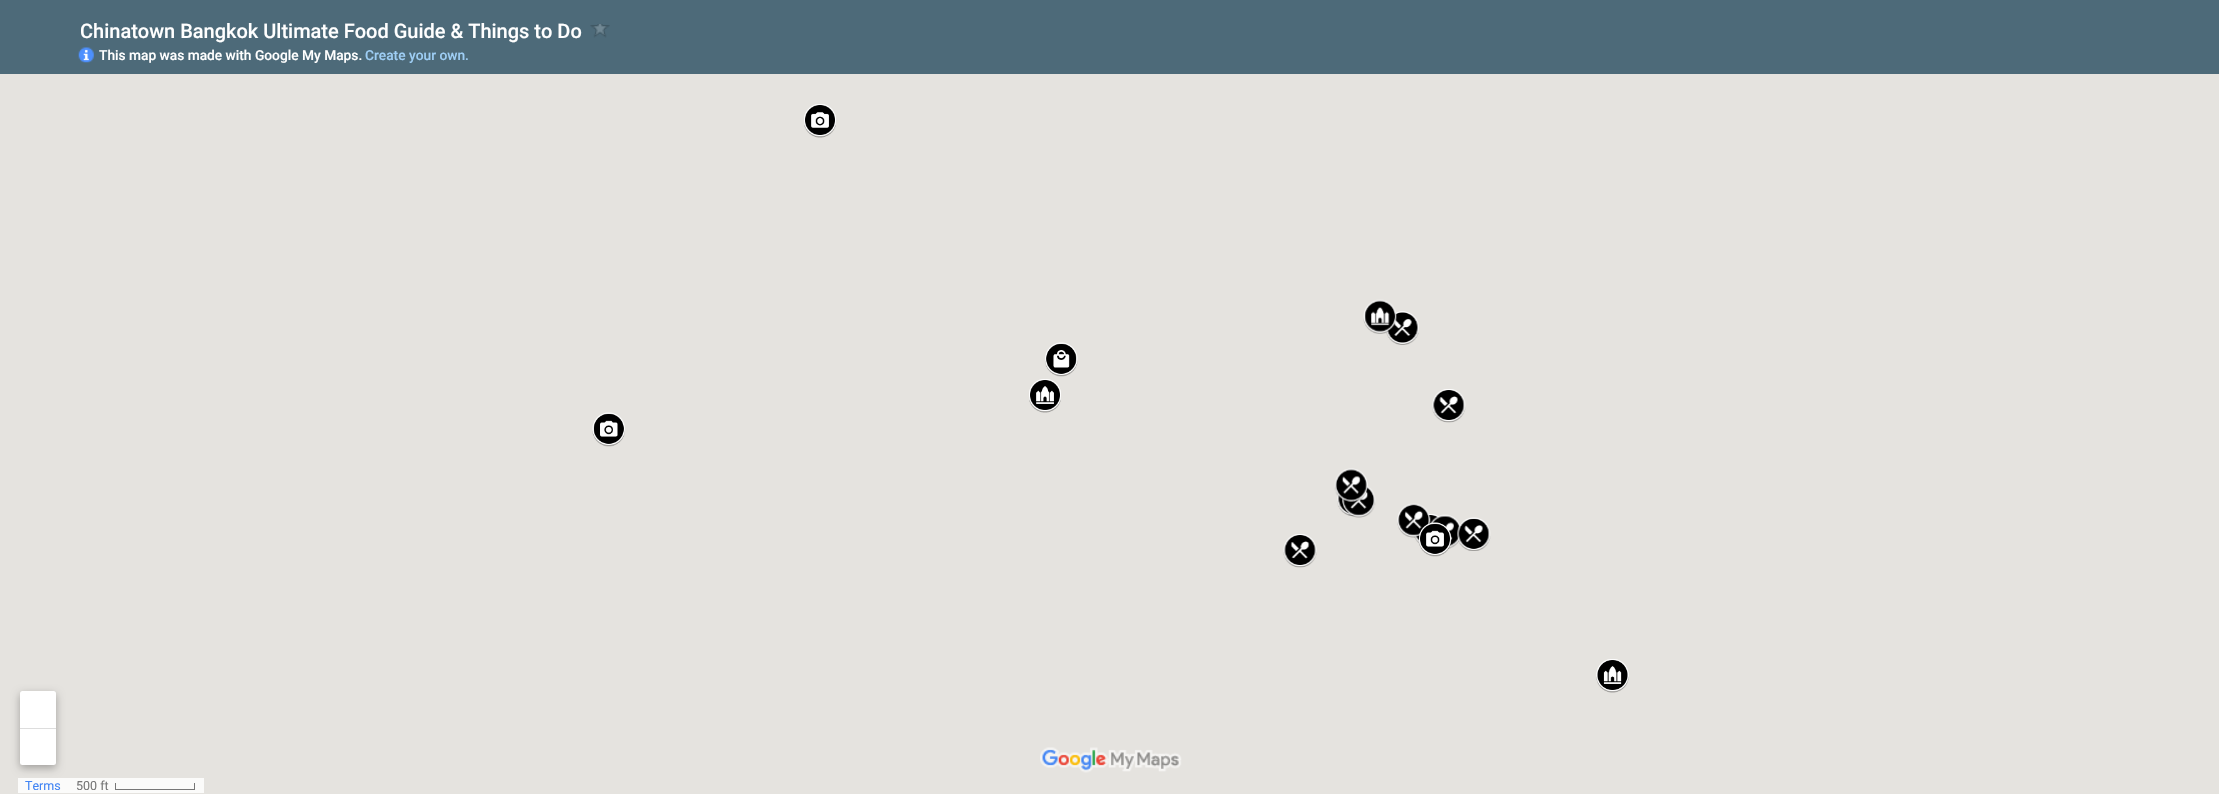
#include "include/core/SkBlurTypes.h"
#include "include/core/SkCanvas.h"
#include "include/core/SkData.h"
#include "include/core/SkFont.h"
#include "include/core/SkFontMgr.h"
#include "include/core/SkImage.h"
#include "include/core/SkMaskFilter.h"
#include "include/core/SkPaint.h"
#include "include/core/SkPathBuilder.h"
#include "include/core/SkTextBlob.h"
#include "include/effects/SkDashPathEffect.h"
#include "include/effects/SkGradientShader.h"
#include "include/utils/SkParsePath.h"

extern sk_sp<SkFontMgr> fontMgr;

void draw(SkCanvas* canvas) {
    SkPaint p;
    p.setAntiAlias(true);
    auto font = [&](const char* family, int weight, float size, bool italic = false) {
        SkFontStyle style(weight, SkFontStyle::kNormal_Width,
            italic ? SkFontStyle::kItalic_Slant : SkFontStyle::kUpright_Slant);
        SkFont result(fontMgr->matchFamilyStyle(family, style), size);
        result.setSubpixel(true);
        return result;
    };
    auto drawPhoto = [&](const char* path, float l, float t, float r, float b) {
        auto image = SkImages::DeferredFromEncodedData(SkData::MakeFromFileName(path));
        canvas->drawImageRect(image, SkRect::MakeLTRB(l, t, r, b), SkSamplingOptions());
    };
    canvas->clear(0xFFE5E3DF);
    p.setColor(0xFF4D6A79);
    canvas->drawRect(SkRect::MakeLTRB(0, 0, 2219, 74), p);
    auto font1 = font("Roboto", 500, 20);
    p.setColor(0xFFFFFFFF);
    canvas->drawString("Chinatown Bangkok Ultimate Food Guide & Things to Do", 80, 38, font1, p);
    drawPhoto("media/1.png", 590, 24, 610, 38);
    drawPhoto("media/2.png", 78, 47, 94, 63);
    auto font2 = font("Roboto", 500, 13.75f);
    canvas->drawString("This map was made with Google My Maps.", 99, 60, font2, p);
    p.setColor(0xFF9ECEF5);
    canvas->drawString("Create your own.", 365, 60, font2, p);
    drawPhoto("media/3.png", 804, 104, 836, 138);
    drawPhoto("media/5.png", 1386, 311, 1419, 345);
    drawPhoto("media/4.png", 1363, 299, 1397, 334);
    drawPhoto("media/6.png", 1045, 342, 1078, 377);
    drawPhoto("media/7.png", 1029, 379, 1061, 413);
    drawPhoto("media/8.png", 1432, 389, 1466, 423);
    drawPhoto("media/9.png", 592, 412, 625, 447);
    drawPhoto("media/12.png", 1337, 493, 1360, 516);
    drawPhoto("media/11.png", 1342, 484, 1376, 518);
    drawPhoto("media/10.png", 1334, 468, 1368, 503);
    drawPhoto("media/14.png", 1414, 514, 1440, 544);
    drawPhoto("media/13.png", 1397, 503, 1431, 538);
    drawPhoto("media/15.png", 1429, 514, 1461, 549);
    drawPhoto("media/16.png", 1457, 517, 1491, 551);
    drawPhoto("media/17.png", 1283, 534, 1317, 568);
    drawPhoto("media/18.png", 1418, 522, 1452, 557);
    drawPhoto("media/19.png", 1596, 659, 1629, 693);
    p.setColor(0x4D000000);
    p.setMaskFilter(SkMaskFilter::MakeBlur(kNormal_SkBlurStyle, 4));
    canvas->drawRoundRect(SkRect::MakeLTRB(20, 694, 56, 768), 2.5f, 2.5f, p);
    p.setMaskFilter(nullptr);
    p.setColor(0xFFFFFFFF);
    canvas->drawRoundRect(SkRect::MakeLTRB(20, 691, 56, 765), 2.5f, 2.5f, p);
    p.setColor(0xFFDDDDDD);
    canvas->drawRect(SkRect::MakeLTRB(20, 728, 56, 729), p);
    drawPhoto("media/20.png", 1040, 747, 1182, 773);
    p.setColor(0xFFFBFBFA);
    canvas->drawRect(SkRect::MakeLTRB(18, 778, 204, 793), p);
    auto font3 = font("Roboto", 400, 12.5f);
    p.setColor(0xFF4285F4);
    canvas->drawString("Terms", 25, 790, font3, p);
    p.setColor(0xFF777777);
    canvas->drawString("500 ft", 76, 790, font3, p);
    {
        const struct { float l, t, r, b; SkColor color; } items[] = {
            {115, 789, 195, 790, 0xFF777777},
            {115, 783, 116, 790, 0xFF777777},
            {194, 783, 195, 790, 0xFF777777},
        };
        for (auto [l, t, r, b, color] : items) {
            p.setColor(color);
            canvas->drawRect(SkRect::MakeLTRB(l, t, r, b), p);
        }
    }
}
